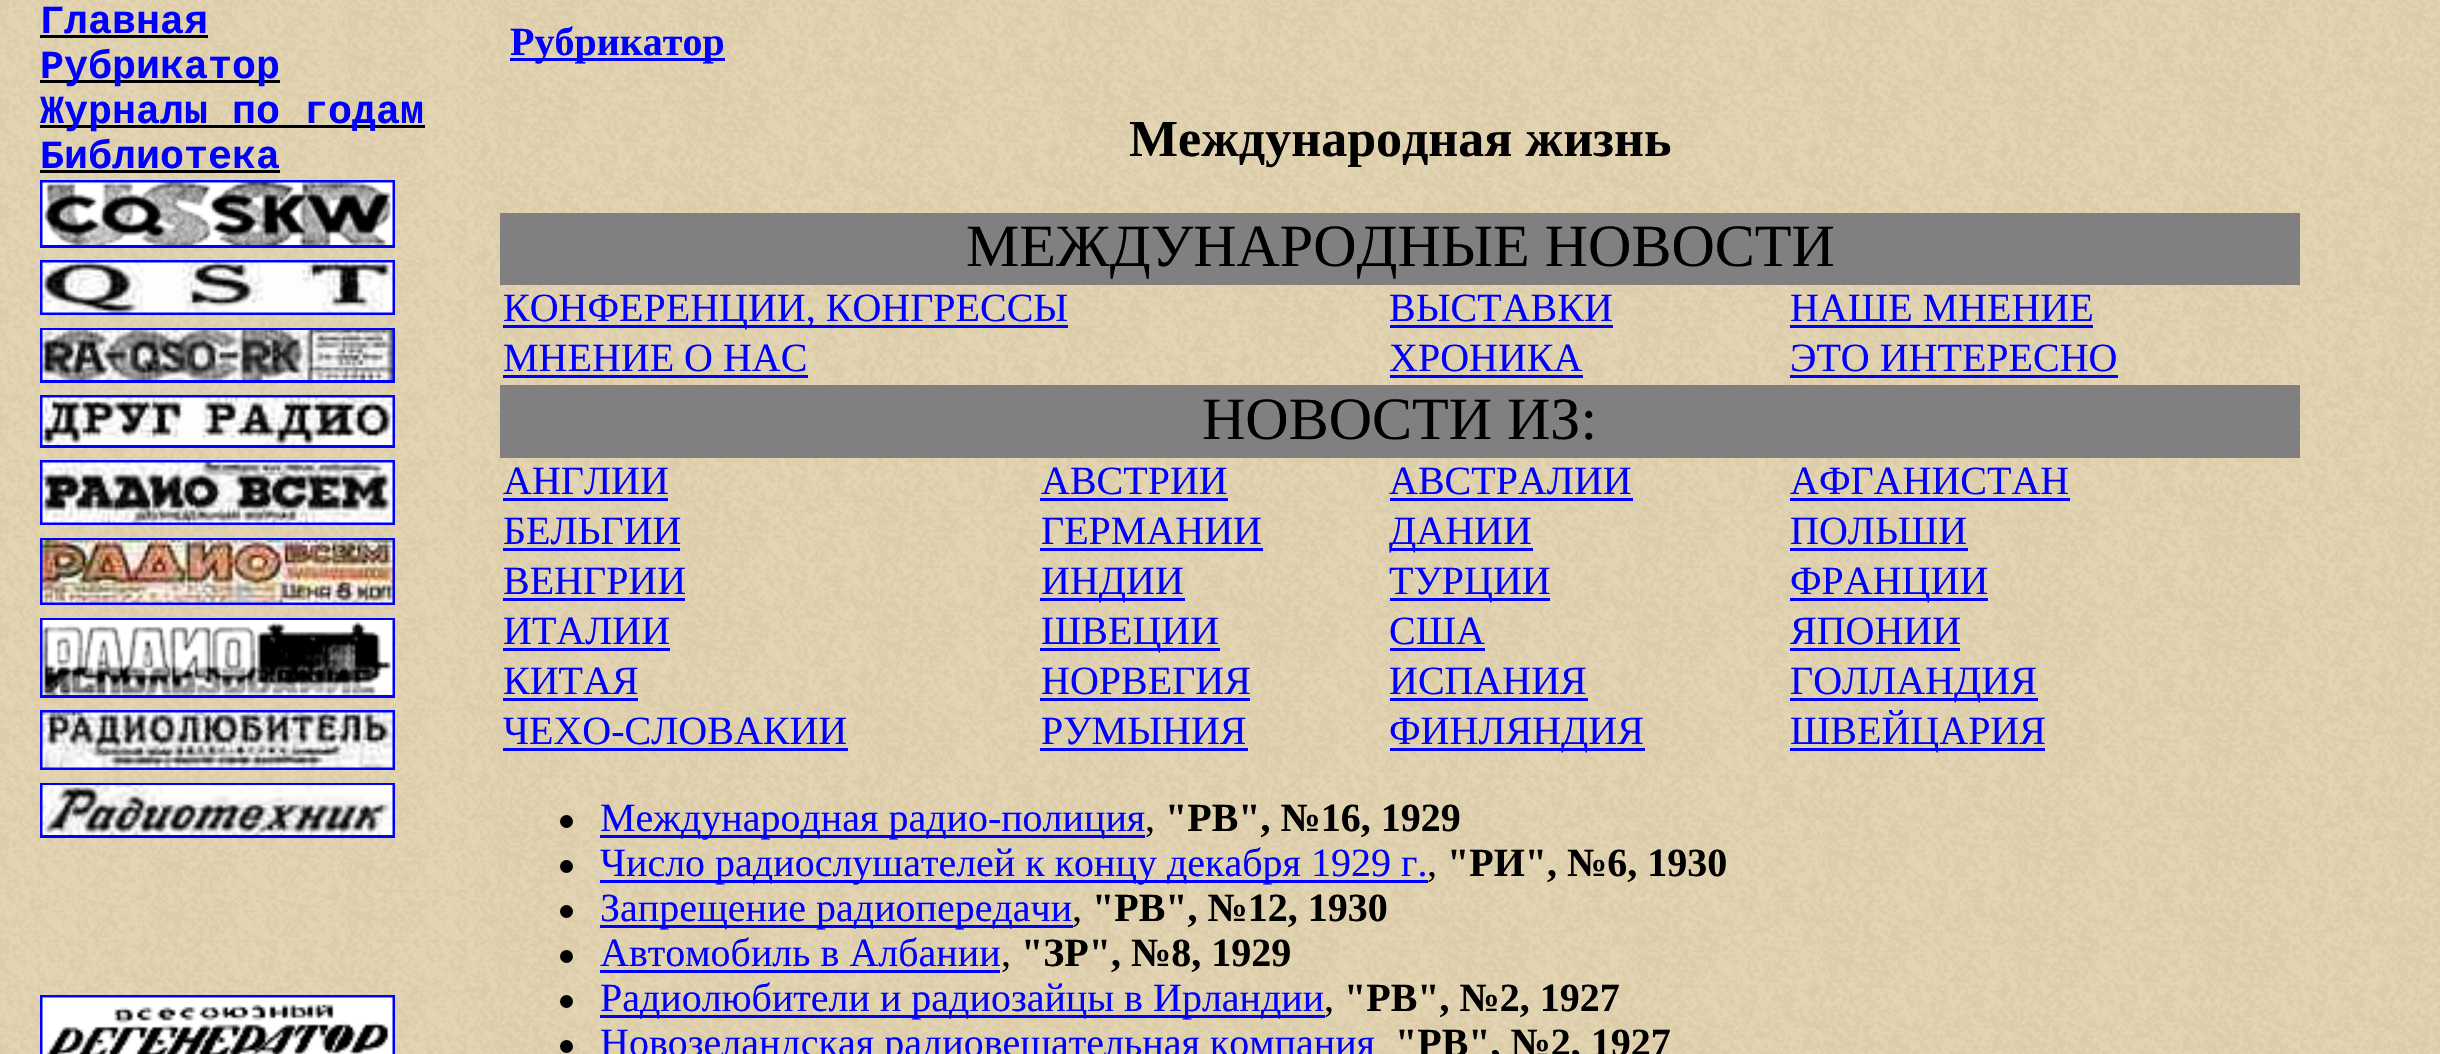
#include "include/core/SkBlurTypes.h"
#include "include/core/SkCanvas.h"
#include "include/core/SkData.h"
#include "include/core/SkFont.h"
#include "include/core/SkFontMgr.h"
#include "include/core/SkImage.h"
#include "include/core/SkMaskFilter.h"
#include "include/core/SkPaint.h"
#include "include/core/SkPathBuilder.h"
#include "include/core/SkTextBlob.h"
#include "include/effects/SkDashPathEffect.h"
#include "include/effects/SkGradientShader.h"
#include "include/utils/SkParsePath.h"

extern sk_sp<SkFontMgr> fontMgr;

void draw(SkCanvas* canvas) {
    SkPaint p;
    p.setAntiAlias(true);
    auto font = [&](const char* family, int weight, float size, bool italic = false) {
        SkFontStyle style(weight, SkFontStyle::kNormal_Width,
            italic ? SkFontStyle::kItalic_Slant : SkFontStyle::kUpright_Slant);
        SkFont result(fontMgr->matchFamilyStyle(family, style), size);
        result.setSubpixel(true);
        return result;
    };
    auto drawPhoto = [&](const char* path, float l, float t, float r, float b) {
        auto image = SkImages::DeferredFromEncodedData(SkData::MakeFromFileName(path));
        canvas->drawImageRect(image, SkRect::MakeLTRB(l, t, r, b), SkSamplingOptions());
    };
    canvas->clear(0xFFFFFFFF);
    drawPhoto("media/1.png", 0, 0, 2440, 1054);
    drawPhoto("media/2.png", 40, 0, 480, 45);
    auto font1 = font("Liberation Mono", 700, 40);
    p.setColor(0xFF0000FF);
    canvas->drawString("Главная", 40, 33, font1, p);
    p.setColor(0xFF000000);
    canvas->drawRect(SkRect::MakeLTRB(40, 35, 208, 38), p);
    drawPhoto("media/3.png", 40, 45, 480, 90);
    canvas->drawRect(SkRect::MakeLTRB(40, 80, 280, 83), p);
    p.setColor(0xFF0000FF);
    canvas->drawString("Рубрикатор", 40, 78, font1, p);
    drawPhoto("media/4.png", 40, 90, 480, 135);
    p.setColor(0xFF000000);
    canvas->drawRect(SkRect::MakeLTRB(40, 125, 425, 128), p);
    p.setColor(0xFF0000FF);
    canvas->drawString("Журналы по годам", 40, 123, font1, p);
    drawPhoto("media/5.png", 40, 135, 480, 180);
    canvas->drawString("Библиотека", 40, 168, font1, p);
    p.setColor(0xFF000000);
    canvas->drawRect(SkRect::MakeLTRB(40, 170, 280, 173), p);
    drawPhoto("media/6.png", 40, 180, 480, 260);
    p.setStyle(SkPaint::kStroke_Style);
    p.setStrokeWidth(3);
    p.setColor(0xFF0000FF);
    canvas->drawRect(SkRect::MakeLTRB(41.5f, 181.5f, 393.5f, 246.5f), p);
    drawPhoto("media/7.png", 42, 182, 393, 245);
    drawPhoto("media/8.png", 40, 260, 480, 328);
    canvas->drawRect(SkRect::MakeLTRB(41.5f, 261.5f, 393.5f, 313.5f), p);
    drawPhoto("media/9.png", 42, 262, 393, 313);
    drawPhoto("media/10.png", 40, 327, 480, 395);
    canvas->drawRect(SkRect::MakeLTRB(41.5f, 329.5f, 393.5f, 381.5f), p);
    drawPhoto("media/11.png", 42, 330, 393, 380);
    drawPhoto("media/12.png", 40, 395, 480, 460);
    canvas->drawRect(SkRect::MakeLTRB(41.5f, 396.5f, 393.5f, 446.5f), p);
    drawPhoto("media/13.png", 42, 397, 393, 445);
    drawPhoto("media/14.png", 40, 460, 480, 538);
    canvas->drawRect(SkRect::MakeLTRB(41.5f, 461.5f, 393.5f, 523.5f), p);
    drawPhoto("media/15.png", 42, 462, 393, 523);
    drawPhoto("media/16.png", 40, 537, 480, 618);
    canvas->drawRect(SkRect::MakeLTRB(41.5f, 539.5f, 393.5f, 603.5f), p);
    drawPhoto("media/17.png", 42, 540, 393, 603);
    drawPhoto("media/18.png", 40, 617, 480, 710);
    canvas->drawRect(SkRect::MakeLTRB(41.5f, 619.5f, 393.5f, 696.5f), p);
    drawPhoto("media/19.png", 42, 620, 393, 695);
    drawPhoto("media/20.png", 40, 710, 480, 783);
    canvas->drawRect(SkRect::MakeLTRB(41.5f, 711.5f, 393.5f, 768.5f), p);
    drawPhoto("media/21.png", 42, 712, 393, 768);
    drawPhoto("media/22.png", 40, 782, 480, 850);
    canvas->drawRect(SkRect::MakeLTRB(41.5f, 784.5f, 393.5f, 836.5f), p);
    drawPhoto("media/23.png", 42, 785, 393, 835);
    drawPhoto("media/24.png", 40, 850, 480, 900);
    drawPhoto("media/25.png", 40, 900, 480, 995);
    drawPhoto("media/26.png", 395, 995, 480, 1054);
    canvas->drawRect(SkRect::MakeLTRB(41.5f, 996.5f, 393.5f, 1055.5f), p);
    drawPhoto("media/27.png", 42, 997, 393, 1054);
    p.setStyle(SkPaint::kFill_Style);
    canvas->drawRect(SkRect::MakeLTRB(510, 58, 725, 61), p);
    auto font2 = font("Liberation Serif", 700, 40);
    canvas->drawString("Рубрикатор", 510, 55, font2, p);
    auto font3 = font("Liberation Serif", 700, 52);
    p.setColor(0xFF000000);
    canvas->drawString("Международная жизнь", 1129, 156, font3, p);
    p.setColor(0xFF808080);
    canvas->drawRect(SkRect::MakeLTRB(500, 213, 2300, 285), p);
    auto font4 = font("Liberation Serif", 400, 60);
    p.setColor(0xFF000000);
    canvas->drawString("МЕЖДУНАРОДНЫЕ НОВОСТИ", 966, 266, font4, p);
    p.setColor(0xFF0000FF);
    canvas->drawRect(SkRect::MakeLTRB(503, 325, 1068, 328), p);
    auto font5 = font("Liberation Serif", 400, 40);
    canvas->drawString("КОНФЕРЕНЦИИ, КОНГРЕССЫ", 503, 321, font5, p);
    canvas->drawString("ВЫСТАВКИ", 1389, 321, font5, p);
    canvas->drawRect(SkRect::MakeLTRB(1390, 325, 1613, 328), p);
    canvas->drawString("НАШЕ МНЕНИЕ", 1790, 321, font5, p);
    canvas->drawRect(SkRect::MakeLTRB(1790, 325, 2093, 328), p);
    canvas->drawString("МНЕНИЕ О НАС", 503, 371, font5, p);
    canvas->drawRect(SkRect::MakeLTRB(503, 375, 808, 378), p);
    canvas->drawString("ХРОНИКА", 1389, 371, font5, p);
    canvas->drawRect(SkRect::MakeLTRB(1390, 375, 1583, 378), p);
    canvas->drawString("ЭТО ИНТЕРЕСНО", 1790, 371, font5, p);
    canvas->drawRect(SkRect::MakeLTRB(1790, 375, 2118, 378), p);
    p.setColor(0xFF808080);
    canvas->drawRect(SkRect::MakeLTRB(500, 385, 2300, 458), p);
    p.setColor(0xFF000000);
    canvas->drawString("НОВОСТИ ИЗ:", 1202, 439, font4, p);
    p.setColor(0xFF0000FF);
    canvas->drawString("АНГЛИИ", 503, 494, font5, p);
    canvas->drawRect(SkRect::MakeLTRB(503, 498, 668, 501), p);
    canvas->drawString("АВСТРИИ", 1041, 494, font5, p);
    canvas->drawRect(SkRect::MakeLTRB(1040, 498, 1228, 501), p);
    canvas->drawString("АВСТРАЛИИ", 1389, 494, font5, p);
    canvas->drawRect(SkRect::MakeLTRB(1390, 498, 1633, 501), p);
    canvas->drawString("АФГАНИСТАН", 1790, 494, font5, p);
    canvas->drawRect(SkRect::MakeLTRB(1790, 498, 2070, 501), p);
    canvas->drawString("БЕЛЬГИИ", 503, 544, font5, p);
    canvas->drawRect(SkRect::MakeLTRB(503, 548, 680, 551), p);
    canvas->drawString("ГЕРМАНИИ", 1041, 544, font5, p);
    canvas->drawRect(SkRect::MakeLTRB(1040, 548, 1263, 551), p);
    canvas->drawRect(SkRect::MakeLTRB(1390, 548, 1533, 551), p);
    canvas->drawString("ДАНИИ", 1389, 544, font5, p);
    canvas->drawString("ПОЛЬШИ", 1790, 544, font5, p);
    canvas->drawRect(SkRect::MakeLTRB(1790, 548, 1968, 551), p);
    canvas->drawString("ВЕНГРИИ", 503, 594, font5, p);
    canvas->drawRect(SkRect::MakeLTRB(503, 598, 685, 601), p);
    canvas->drawRect(SkRect::MakeLTRB(1040, 598, 1185, 601), p);
    canvas->drawString("ИНДИИ", 1041, 594, font5, p);
    canvas->drawRect(SkRect::MakeLTRB(1390, 598, 1550, 601), p);
    canvas->drawString("ТУРЦИИ", 1389, 594, font5, p);
    canvas->drawRect(SkRect::MakeLTRB(1790, 598, 1988, 601), p);
    canvas->drawString("ФРАНЦИИ", 1790, 594, font5, p);
    canvas->drawString("ИТАЛИИ", 503, 644, font5, p);
    canvas->drawRect(SkRect::MakeLTRB(503, 648, 670, 651), p);
    canvas->drawRect(SkRect::MakeLTRB(1040, 648, 1220, 651), p);
    canvas->drawString("ШВЕЦИИ", 1041, 644, font5, p);
    canvas->drawString("США", 1389, 644, font5, p);
    canvas->drawRect(SkRect::MakeLTRB(1390, 648, 1485, 651), p);
    canvas->drawString("ЯПОНИИ", 1790, 644, font5, p);
    canvas->drawRect(SkRect::MakeLTRB(1790, 648, 1960, 651), p);
    canvas->drawString("КИТАЯ", 503, 694, font5, p);
    canvas->drawRect(SkRect::MakeLTRB(503, 698, 638, 701), p);
    canvas->drawString("НОРВЕГИЯ", 1041, 694, font5, p);
    canvas->drawRect(SkRect::MakeLTRB(1040, 698, 1250, 701), p);
    canvas->drawString("ИСПАНИЯ", 1389, 694, font5, p);
    canvas->drawRect(SkRect::MakeLTRB(1390, 698, 1588, 701), p);
    canvas->drawRect(SkRect::MakeLTRB(1790, 698, 2038, 701), p);
    canvas->drawString("ГОЛЛАНДИЯ", 1790, 694, font5, p);
    canvas->drawString("ЧЕХО-СЛОВАКИИ", 503, 744, font5, p);
    canvas->drawRect(SkRect::MakeLTRB(503, 748, 848, 751), p);
    canvas->drawString("РУМЫНИЯ", 1041, 744, font5, p);
    canvas->drawRect(SkRect::MakeLTRB(1040, 748, 1248, 751), p);
    canvas->drawRect(SkRect::MakeLTRB(1390, 748, 1645, 751), p);
    canvas->drawString("ФИНЛЯНДИЯ", 1389, 744, font5, p);
    canvas->drawRect(SkRect::MakeLTRB(1790, 748, 2045, 751), p);
    canvas->drawString("ШВЕЙЦАРИЯ", 1790, 744, font5, p);
    p.setColor(0xFF000000);
    canvas->drawCircle(566.5f, 821.5f, 6.5f, p);
    p.setColor(0xFF0000FF);
    canvas->drawRect(SkRect::MakeLTRB(600, 835, 1145, 838), p);
    canvas->drawString("Международная радио-полиция", 600, 831, font5, p);
    p.setColor(0xFF000000);
    canvas->drawString("\"РВ\", №16, 1929", 1165, 831, font2, p);
    canvas->drawString(",", 1145, 831, font5, p);
    canvas->drawCircle(566.5f, 866.5f, 6.5f, p);
    p.setColor(0xFF0000FF);
    canvas->drawRect(SkRect::MakeLTRB(600, 880, 1428, 883), p);
    canvas->drawString("Число радиослушателей к концу декабря 1929 г.", 600, 876, font5, p);
    p.setColor(0xFF000000);
    canvas->drawString("\"РИ\", №6, 1930", 1447, 876, font2, p);
    canvas->drawString(",", 1427, 876, font5, p);
    canvas->drawCircle(566.5f, 911.5f, 6.5f, p);
    p.setColor(0xFF0000FF);
    canvas->drawRect(SkRect::MakeLTRB(600, 925, 1073, 928), p);
    canvas->drawString("Запрещение радиопередачи", 600, 921, font5, p);
    p.setColor(0xFF000000);
    canvas->drawString("\"РВ\", №12, 1930", 1092, 921, font2, p);
    canvas->drawString(",", 1072, 921, font5, p);
    canvas->drawCircle(566.5f, 956.5f, 6.5f, p);
    p.setColor(0xFF0000FF);
    canvas->drawString("Автомобиль в Албании", 600, 966, font5, p);
    canvas->drawRect(SkRect::MakeLTRB(600, 970, 1000, 973), p);
    p.setColor(0xFF000000);
    canvas->drawString("\"ЗР\", №8, 1929", 1021, 966, font2, p);
    canvas->drawString(",", 1001, 966, font5, p);
    canvas->drawCircle(566.5f, 1001.5f, 6.5f, p);
    p.setColor(0xFF0000FF);
    canvas->drawRect(SkRect::MakeLTRB(600, 1015, 1325, 1018), p);
    canvas->drawString("Радиолюбители и радиозайцы в Ирландии", 600, 1011, font5, p);
    p.setColor(0xFF000000);
    canvas->drawString("\"РВ\", №2, 1927", 1344, 1011, font2, p);
    canvas->drawString(",", 1324, 1011, font5, p);
    canvas->drawCircle(566.5f, 1046.5f, 6.5f, p);
    p.setColor(0xFF0000FF);
    canvas->drawString("Новозеландская радиовещательная компания", 600, 1056, font5, p);
    p.setColor(0xFF000000);
    canvas->drawString("\"РВ\", №2, 1927", 1395, 1056, font2, p);
}
